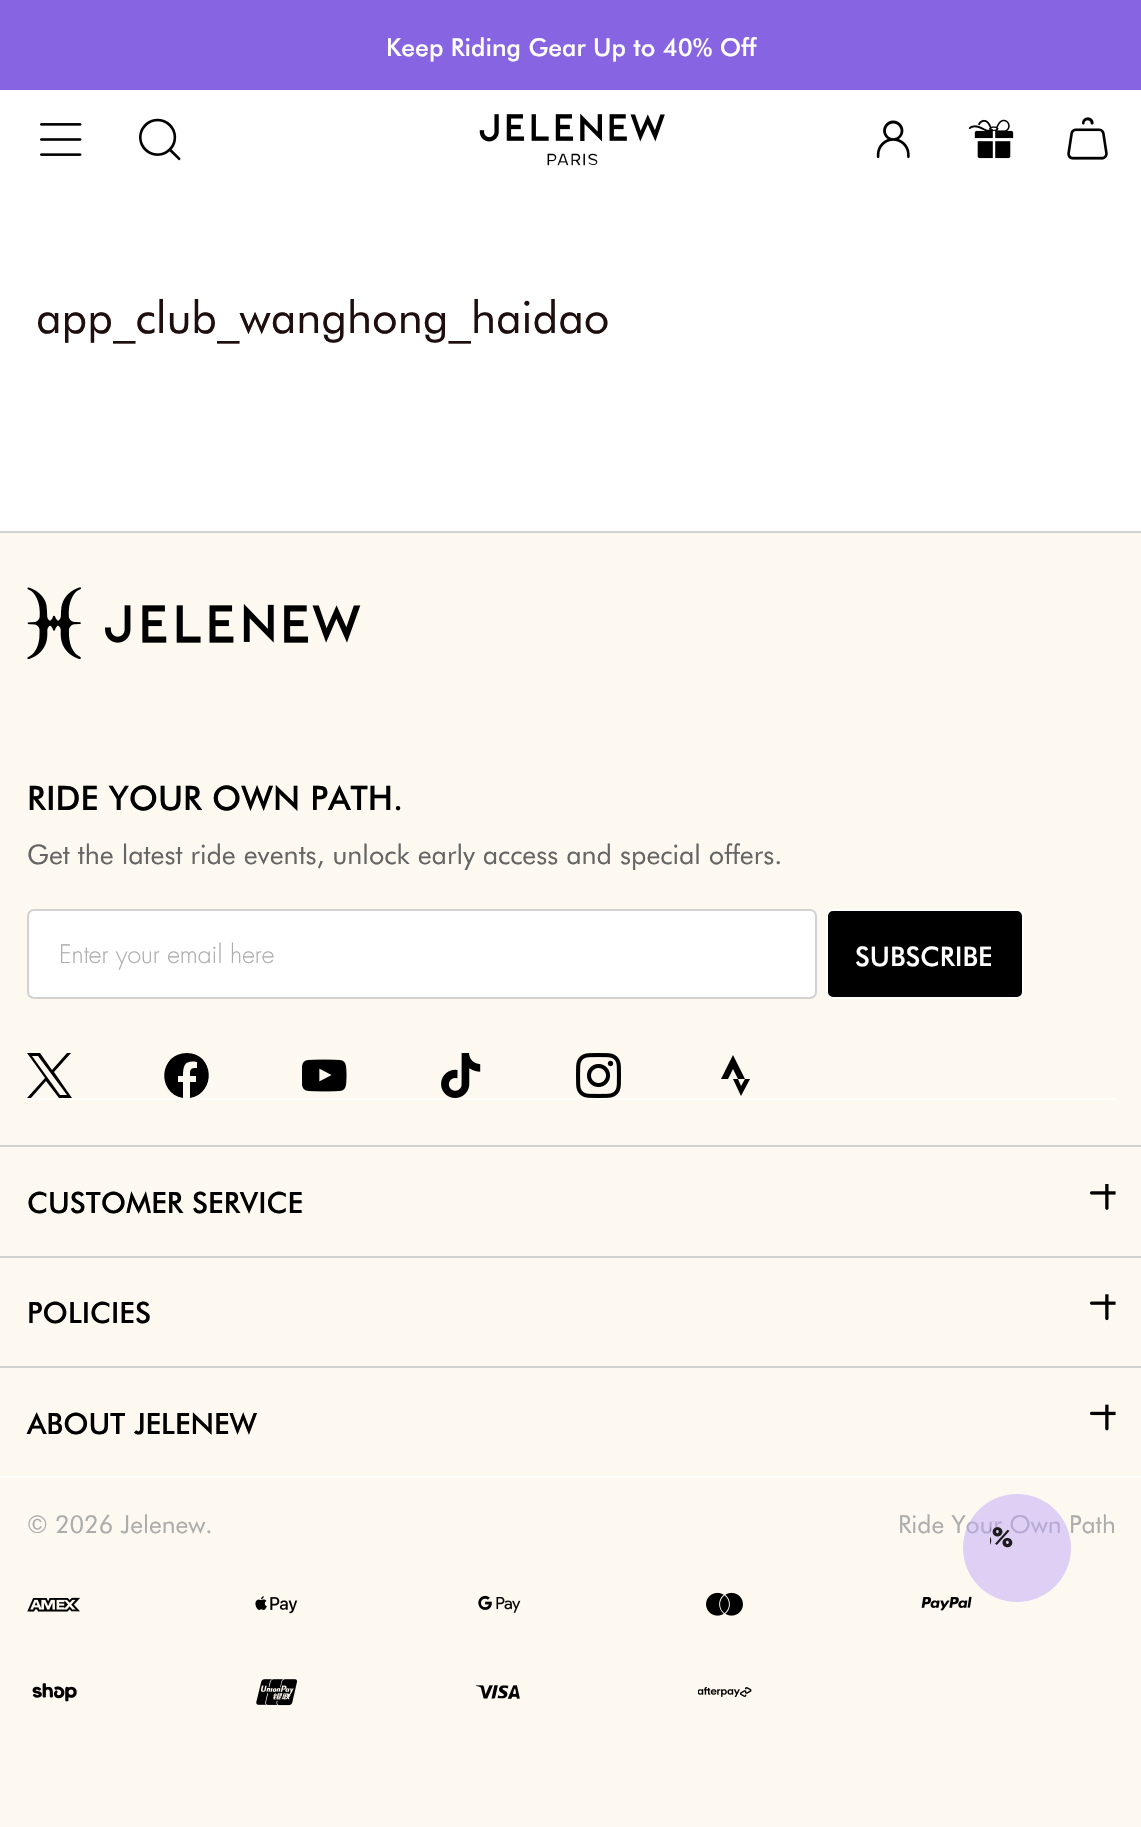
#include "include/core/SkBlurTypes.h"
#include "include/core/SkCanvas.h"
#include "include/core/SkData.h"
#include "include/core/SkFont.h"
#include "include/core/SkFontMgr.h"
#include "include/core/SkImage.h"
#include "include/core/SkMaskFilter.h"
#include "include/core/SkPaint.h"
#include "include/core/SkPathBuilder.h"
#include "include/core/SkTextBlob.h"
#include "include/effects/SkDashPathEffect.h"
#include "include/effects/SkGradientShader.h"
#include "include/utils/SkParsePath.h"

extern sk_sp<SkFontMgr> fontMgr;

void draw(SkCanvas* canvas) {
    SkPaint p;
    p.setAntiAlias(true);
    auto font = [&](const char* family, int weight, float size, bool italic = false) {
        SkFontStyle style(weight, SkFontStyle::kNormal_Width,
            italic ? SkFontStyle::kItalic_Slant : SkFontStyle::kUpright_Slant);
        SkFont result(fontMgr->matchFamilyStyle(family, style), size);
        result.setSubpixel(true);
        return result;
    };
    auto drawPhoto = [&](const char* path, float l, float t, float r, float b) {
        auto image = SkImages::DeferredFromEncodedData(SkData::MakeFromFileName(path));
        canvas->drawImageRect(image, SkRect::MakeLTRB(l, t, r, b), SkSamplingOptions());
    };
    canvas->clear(0xFFFFFFFF);
    p.setColor(0xFF8664E2);
    canvas->drawRect(SkRect::MakeLTRB(0, 0, 1141, 90), p);
    auto font1 = font("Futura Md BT", 500, 24.75f);
    p.setColor(0xFFFFFFFF);
    canvas->drawString("Keep Riding Gear Up to 40% Off", 386, 56, font1, p);
    drawPhoto("media/1.png", 40, 123, 82, 156);
    drawPhoto("media/2.png", 139, 118, 181, 161);
    drawPhoto("media/3.png", 479, 113, 665, 166);
    drawPhoto("media/4.png", 876, 120, 910, 159);
    drawPhoto("media/5.png", 968, 119, 1014, 159);
    drawPhoto("media/6.png", 1067, 117, 1108, 160);
    auto font2 = font("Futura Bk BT", 400, 45);
    p.setColor(0xFF1E0E0E);
    canvas->drawString("app_club_wanghong_haidao", 36, 333, font2, p);
    p.setColor(0xFFFEF9F0);
    canvas->drawRect(SkRect::MakeLTRB(0, 533, 1141, 1827), p);
    p.setColor(0xFFD2D2D2);
    canvas->drawRect(SkRect::MakeLTRB(0, 531, 1141, 533), p);
    drawPhoto("media/7.png", 27, 587, 361, 659);
    p.setColor(0xFFFFFDF9);
    canvas->drawRect(SkRect::MakeLTRB(27, 1098, 1116, 1100), p);
    auto font3 = font("Futura Md BT", 500, 33.75f);
    p.setColor(0xFF000000);
    canvas->drawString("RIDE YOUR OWN PATH.", 27, 810, font3, p);
    auto font4 = font("Futura Bk BT", 400, 27);
    p.setColor(0xFF656565);
    canvas->drawString("Get the latest ride events, unlock early access and special offers.", 27, 864, font4, p);
    p.setColor(0xFFFFFFFF);
    canvas->drawRoundRect(SkRect::MakeLTRB(28, 910, 816, 998), 6, 6, p);
    p.setStyle(SkPaint::kStroke_Style);
    p.setStrokeWidth(2);
    p.setColor(0xFFD2D2D2);
    canvas->drawRoundRect(SkRect::MakeLTRB(28, 910, 816, 998), 6, 6, p);
    auto font5 = font("Futura", 300, 24.75f);
    p.setStyle(SkPaint::kFill_Style);
    p.setColor(0xFFACACAC);
    canvas->drawString("Enter your email here", 59, 963, font5, p);
    p.setColor(0xFF000000);
    canvas->drawRoundRect(SkRect::MakeLTRB(827, 910, 1023, 998), 6, 6, p);
    p.setStyle(SkPaint::kStroke_Style);
    p.setColor(0xFFFFFFFF);
    canvas->drawRoundRect(SkRect::MakeLTRB(827, 910, 1023, 998), 6, 6, p);
    auto font6 = font("Futura Md BT", 500, 27);
    p.setStyle(SkPaint::kFill_Style);
    canvas->drawString("SUBSCRIBE", 855, 966, font6, p);
    p.setColor(0xFF000000);
    canvas->drawPath(SkPathBuilder().moveTo(54, 1072).lineTo(71, 1053).lineTo(67, 1053).lineTo(52, 1070).lineTo(40, 1053).lineTo(27, 1053).lineTo(45, 1078).lineTo(27, 1098).lineTo(31, 1098).lineTo(46, 1081).lineTo(59, 1098).lineTo(72, 1098).moveTo(32, 1056).lineTo(38, 1056).lineTo(67, 1095).lineTo(60, 1095).detach(), p);
    canvas->drawPath(SkPathBuilder().moveTo(187, 1053).cubicTo(159, 1053, 156, 1093, 183, 1098).lineTo(183, 1082).lineTo(178, 1082).lineTo(178, 1076).lineTo(183, 1076).cubicTo(183, 1065, 185, 1060, 197, 1062).lineTo(197, 1068).cubicTo(190, 1068, 190, 1069, 190, 1076).lineTo(196, 1076).lineTo(196, 1082).lineTo(190, 1082).lineTo(190, 1098).cubicTo(217, 1093, 214, 1053, 187, 1053).close().detach(), p);
    drawPhoto("media/8.png", 302, 1059, 347, 1092);
    drawPhoto("media/9.png", 441, 1053, 481, 1098);
    drawPhoto("media/10.png", 576, 1053, 621, 1098);
    canvas->drawPath(SkPathBuilder().moveTo(738, 1079).lineTo(745, 1079).lineTo(733, 1055).lineTo(721, 1079).lineTo(728, 1079).lineTo(733, 1069).close().moveTo(745, 1079).lineTo(741, 1086).lineTo(738, 1079).lineTo(733, 1079).lineTo(741, 1096).lineTo(750, 1079).close().detach(), p);
    p.setColor(0xFFFFFDF9);
    canvas->drawRect(SkRect::MakeLTRB(0, 1476, 1141, 1478), p);
    p.setColor(0xFFD2D2D2);
    canvas->drawRect(SkRect::MakeLTRB(0, 1145, 1141, 1147), p);
    auto font7 = font("Futura Md BT", 500, 29.25f);
    p.setColor(0xFF000000);
    canvas->drawString("CUSTOMER SERVICE", 27, 1213, font7, p);
    drawPhoto("media/11.png", 1090, 1184, 1116, 1210);
    p.setColor(0xFFD2D2D2);
    canvas->drawRect(SkRect::MakeLTRB(0, 1256, 1141, 1258), p);
    p.setColor(0xFF000000);
    canvas->drawString("POLICIES", 27, 1323, font7, p);
    drawPhoto("media/12.png", 1090, 1294, 1116, 1321);
    p.setColor(0xFFD2D2D2);
    canvas->drawRect(SkRect::MakeLTRB(0, 1366, 1141, 1368), p);
    p.setColor(0xFF000000);
    canvas->drawString("ABOUT JELENEW", 27, 1434, font7, p);
    drawPhoto("media/13.png", 1089, 1404, 1116, 1431);
    auto font8 = font("Futura Bk BT", 400, 24.75f);
    p.setColor(0xFFACACAC);
    canvas->drawString("© 2026 Jelenew.", 27, 1533, font8, p);
    canvas->drawString("Ride Your Own Path", 898, 1533, font8, p);
    drawPhoto("media/14.png", 27, 1597, 80, 1612);
    drawPhoto("media/15.png", 255, 1596, 298, 1614);
    drawPhoto("media/16.png", 478, 1595, 521, 1613);
    drawPhoto("media/17.png", 706, 1592, 743, 1616);
    drawPhoto("media/18.png", 921, 1596, 972, 1611);
    drawPhoto("media/19.png", 32, 1683, 77, 1702);
    drawPhoto("media/20.png", 256, 1679, 297, 1706);
    drawPhoto("media/21.png", 476, 1685, 520, 1699);
    drawPhoto("media/22.png", 698, 1687, 752, 1697);
    p.setColor(0x80BDA7F9);
    canvas->drawCircle(1017, 1548, 54, p);
    drawPhoto("media/23.png", 990, 1521, 1013, 1548);
}
